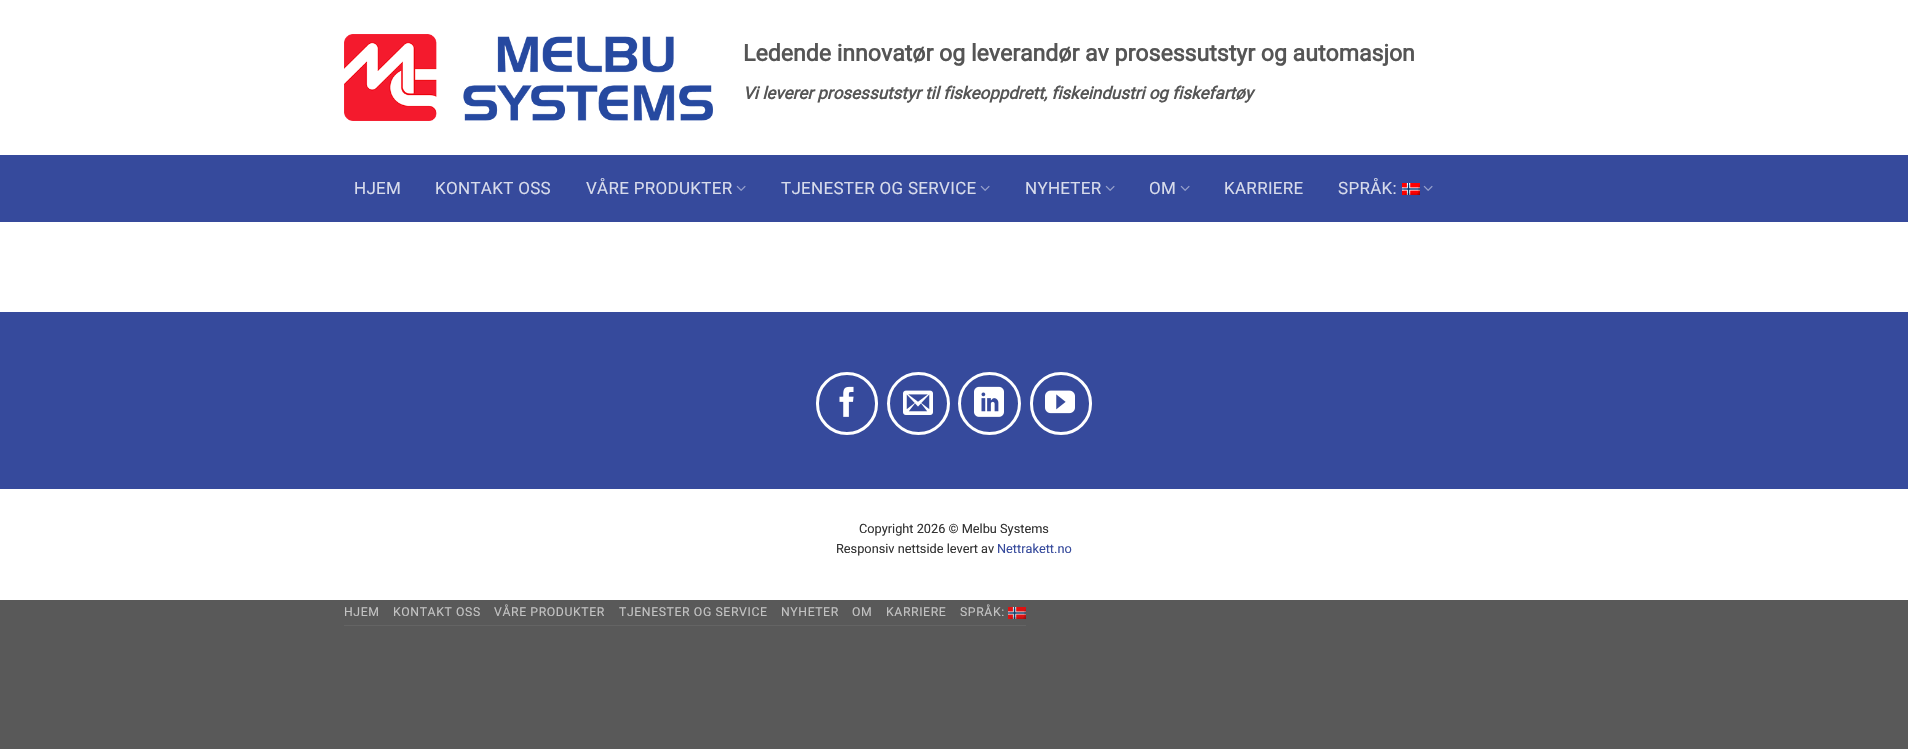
#include "include/core/SkBlurTypes.h"
#include "include/core/SkCanvas.h"
#include "include/core/SkData.h"
#include "include/core/SkFont.h"
#include "include/core/SkFontMgr.h"
#include "include/core/SkImage.h"
#include "include/core/SkMaskFilter.h"
#include "include/core/SkPaint.h"
#include "include/core/SkPathBuilder.h"
#include "include/core/SkTextBlob.h"
#include "include/effects/SkDashPathEffect.h"
#include "include/effects/SkGradientShader.h"
#include "include/utils/SkParsePath.h"

extern sk_sp<SkFontMgr> fontMgr;

void draw(SkCanvas* canvas) {
    SkPaint p;
    p.setAntiAlias(true);
    auto font = [&](const char* family, int weight, float size, bool italic = false) {
        SkFontStyle style(weight, SkFontStyle::kNormal_Width,
            italic ? SkFontStyle::kItalic_Slant : SkFontStyle::kUpright_Slant);
        SkFont result(fontMgr->matchFamilyStyle(family, style), size);
        result.setSubpixel(true);
        return result;
    };
    auto drawTracked = [&](const char* s, float x, float y, const SkFont& font, const SkPaint& ink, float letter, float word) {
        std::vector<SkGlyphID> glyphs(font.countText(s, strlen(s), SkTextEncoding::kUTF8));
        std::vector<float> xs(glyphs.size());
        font.textToGlyphs(s, strlen(s), SkTextEncoding::kUTF8, glyphs);
        font.getXPos(glyphs, xs, x);
        float extra = 0;
        for (size_t i = 0; i < glyphs.size(); i++) {
            xs[i] += extra;
            extra += letter + word * (glyphs[i] == font.unicharToGlyph(' '));
        }
        canvas->drawTextBlob(SkTextBlob::MakeFromPosHGlyphs(glyphs, xs, y, font), 0, 0, ink);
    };
    auto drawPhoto = [&](const char* path, float l, float t, float r, float b) {
        auto image = SkImages::DeferredFromEncodedData(SkData::MakeFromFileName(path));
        canvas->drawImageRect(image, SkRect::MakeLTRB(l, t, r, b), SkSamplingOptions());
    };
    canvas->clear(0xFF595959);
    p.setColor(0xFFFFFFFF);
    canvas->drawRect(SkRect::MakeLTRB(0, 0, 1908, 600), p);
    drawPhoto("media/1.png", 344, 34, 713, 121);
    auto font1 = font("Roboto", 700, 23.1f);
    p.setColor(0xFF555555);
    canvas->drawString("Ledende innovatør og leverandør av prosessutstyr og automasjon", 743, 61, font1, p);
    auto font2 = font("Roboto", 700, 17, true);
    canvas->drawString("Vi leverer prosessutstyr til fiskeoppdrett, fiskeindustri og fiskefartøy", 743, 99, font2, p);
    p.setColor(0xFF364A9C);
    canvas->drawRect(SkRect::MakeLTRB(0, 155, 1908, 222), p);
    auto font3 = font("Roboto", 400, 17);
    p.setColor(0xFFD7DBEB);
    {
        const struct { const char* s; float x, y; } items[] = {
            {"HJEM", 354, 194},
            {"KONTAKT OSS", 435, 194},
            {"VÅRE PRODUKTER", 586, 194},
        };
        for (auto [s, x, y] : items) {
            drawTracked(s, x, y, font3, p, 0.3f, 0);
        }
    }
    drawPhoto("media/2.png", 736, 185, 746, 191);
    drawTracked("TJENESTER OG SERVICE", 781, 194, font3, p, 0.3f, 0);
    drawPhoto("media/2.png", 980, 185, 990, 191);
    drawTracked("NYHETER", 1025, 194, font3, p, 0.3f, 0);
    drawPhoto("media/2.png", 1105, 185, 1115, 191);
    drawTracked("OM", 1149, 194, font3, p, 0.3f, 0);
    drawPhoto("media/2.png", 1180, 185, 1190, 191);
    drawTracked("KARRIERE", 1224, 194, font3, p, 0.3f, 0);
    drawTracked("SPRÅK:", 1338, 194, font3, p, 0.3f, 0);
    drawPhoto("media/3.png", 1402, 183, 1420, 195);
    drawPhoto("media/2.png", 1423, 185, 1433, 191);
    p.setColor(0xFF364A9C);
    canvas->drawRect(SkRect::MakeLTRB(0, 312, 1908, 489), p);
    p.setStyle(SkPaint::kStroke_Style);
    p.setStrokeWidth(3);
    p.setColor(0xFFFFFFFF);
    canvas->drawRoundRect(SkRect::MakeLTRB(817.5f, 373.5f, 876.5f, 433.5f), 29.5f, 29.5f, p);
    drawPhoto("media/4.png", 839, 386, 854, 417);
    canvas->drawCircle(918.5f, 403.5f, 30, p);
    drawPhoto("media/5.png", 903, 390, 933, 415);
    canvas->drawCircle(989.5f, 403.5f, 30, p);
    drawPhoto("media/6.png", 974, 386, 1004, 417);
    canvas->drawRoundRect(SkRect::MakeLTRB(1031.5f, 373.5f, 1090.5f, 433.5f), 29.5f, 29.5f, p);
    drawPhoto("media/7.png", 1045, 390, 1075, 414);
    auto font4 = font("Roboto", 400, 12.75f);
    p.setStyle(SkPaint::kFill_Style);
    p.setColor(0xFF333333);
    canvas->drawString("Copyright 2026 © Melbu Systems", 859, 533, font4, p);
    canvas->drawString("Responsiv nettside levert av", 836, 553, font4, p);
    p.setColor(0xFF364A9C);
    canvas->drawString("Nettrakett.no", 997, 553, font4, p);
    p.setColor(0xFF646464);
    canvas->drawRect(SkRect::MakeLTRB(344, 625, 1026, 626), p);
    auto font5 = font("Roboto", 400, 12.25f);
    p.setColor(0xFFC3C3C3);
    {
        const struct { const char* s; float x, y; } items[] = {
            {"HJEM", 344, 616},
            {"KONTAKT OSS", 393, 616},
            {"VÅRE PRODUKTER", 494, 616},
            {"TJENESTER OG SERVICE", 619, 616},
            {"NYHETER", 781, 616},
            {"OM", 852, 616},
            {"KARRIERE", 886, 616},
            {"SPRÅK:", 960, 616},
        };
        for (auto [s, x, y] : items) {
            drawTracked(s, x, y, font5, p, 0.6f, 0);
        }
    }
    drawPhoto("media/8.png", 1008, 607, 1026, 619);
}
